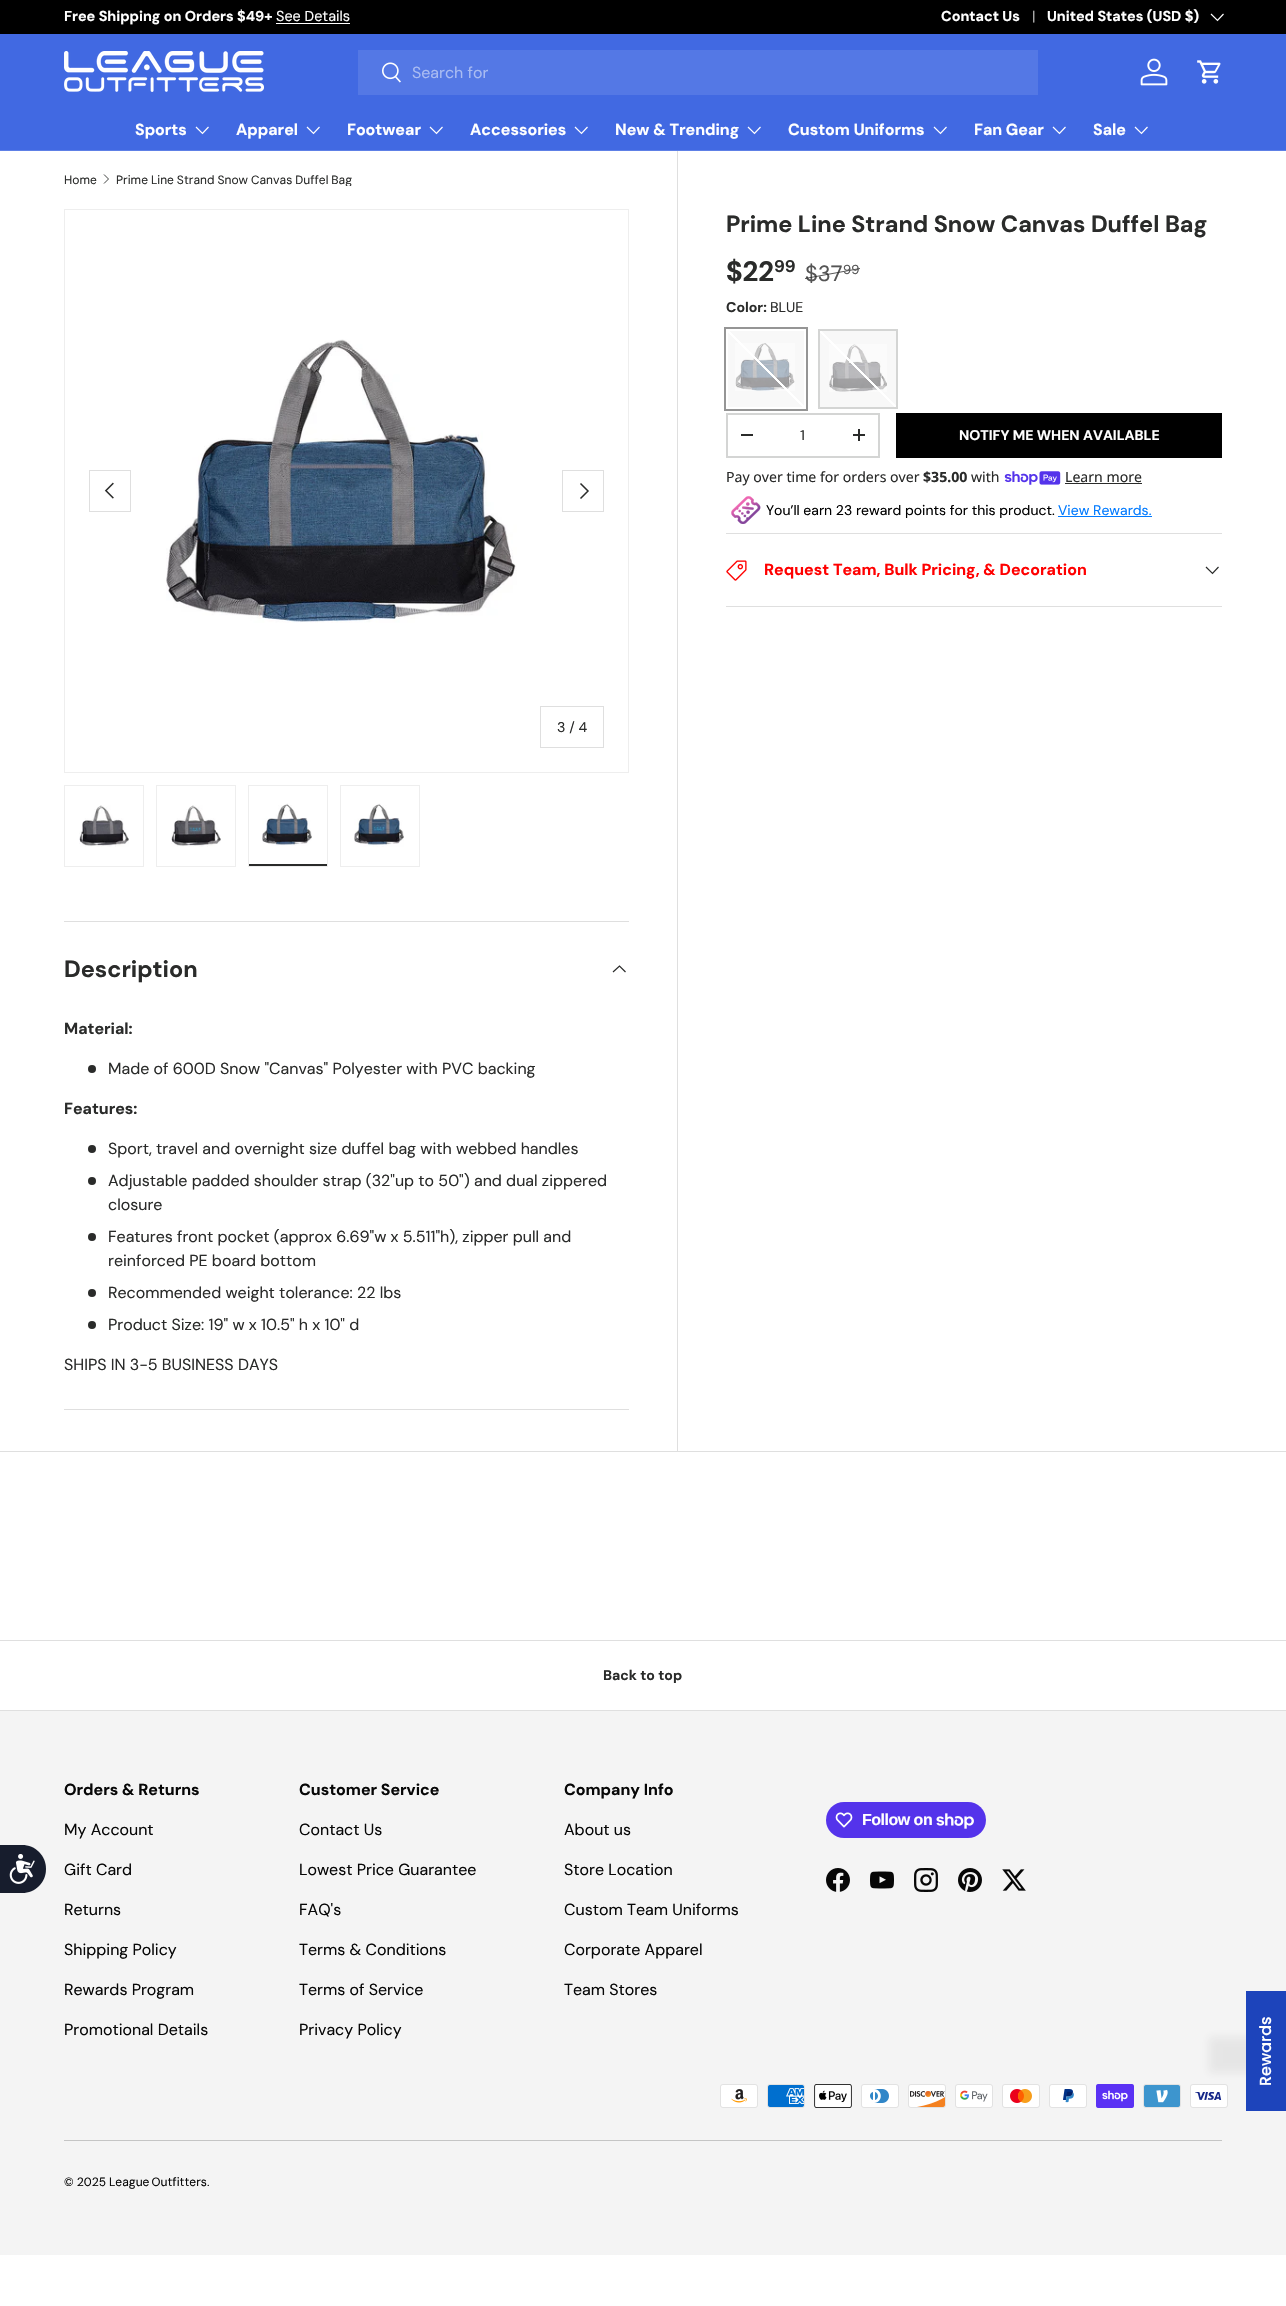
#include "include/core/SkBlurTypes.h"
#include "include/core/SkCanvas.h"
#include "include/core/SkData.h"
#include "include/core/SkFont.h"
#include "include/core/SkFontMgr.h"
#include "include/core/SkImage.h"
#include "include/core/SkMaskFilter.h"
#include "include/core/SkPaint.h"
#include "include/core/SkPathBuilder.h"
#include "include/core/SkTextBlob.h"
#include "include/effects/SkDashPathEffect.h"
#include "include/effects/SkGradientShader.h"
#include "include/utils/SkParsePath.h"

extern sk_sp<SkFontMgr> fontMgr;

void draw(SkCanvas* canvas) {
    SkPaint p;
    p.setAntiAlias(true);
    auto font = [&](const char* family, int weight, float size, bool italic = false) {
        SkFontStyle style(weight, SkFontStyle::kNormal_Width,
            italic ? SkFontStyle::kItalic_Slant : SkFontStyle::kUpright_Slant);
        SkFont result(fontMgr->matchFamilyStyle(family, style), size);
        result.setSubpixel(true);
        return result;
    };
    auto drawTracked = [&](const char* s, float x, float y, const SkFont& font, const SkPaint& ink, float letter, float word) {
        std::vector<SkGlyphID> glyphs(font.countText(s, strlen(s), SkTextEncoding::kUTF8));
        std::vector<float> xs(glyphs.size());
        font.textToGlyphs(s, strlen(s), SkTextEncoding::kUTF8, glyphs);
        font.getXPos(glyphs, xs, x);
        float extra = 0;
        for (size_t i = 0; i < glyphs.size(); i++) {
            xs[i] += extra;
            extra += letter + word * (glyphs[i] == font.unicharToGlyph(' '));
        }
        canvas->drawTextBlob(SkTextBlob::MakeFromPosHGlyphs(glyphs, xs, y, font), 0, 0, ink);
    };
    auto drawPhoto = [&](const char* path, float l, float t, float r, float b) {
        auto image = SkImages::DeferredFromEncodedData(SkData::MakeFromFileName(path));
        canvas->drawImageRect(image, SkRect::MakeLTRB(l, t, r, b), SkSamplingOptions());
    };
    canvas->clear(0xFFFFFFFF);
    p.setColor(0xFF000000);
    canvas->drawRect(SkRect::MakeLTRB(0, 0, 1286, 34), p);
    auto font1 = font("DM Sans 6", 700, 14.4f);
    p.setColor(0xFFFFFFFF);
    canvas->drawString("Free Shipping on Orders $49+", 64, 21, font1, p);
    auto font2 = font("DM Sans", 400, 14.4f);
    canvas->drawString("See Details", 276, 21, font2, p);
    canvas->drawRect(SkRect::MakeLTRB(276, 23, 350, 24), p);
    canvas->drawString("Contact Us", 941, 21, font1, p);
    p.setColor(0xFFB3B3B3);
    canvas->drawString("|", 1032, 21, font2, p);
    p.setColor(0xFFFFFFFF);
    canvas->drawString("United States (USD $)", 1047, 21, font1, p);
    p.setStyle(SkPaint::kStroke_Style);
    p.setStrokeWidth(1.2f);
    canvas->drawPath(SkPathBuilder().moveTo(1223.5f, 14).lineTo(1217.5f, 20.5f).lineTo(1211, 14).detach(), p);
    p.setStyle(SkPaint::kFill_Style);
    p.setColor(0xFF4169E2);
    canvas->drawRect(SkRect::MakeLTRB(0, 34, 1286, 150), p);
    p.setColor(0xFF5E80E6);
    canvas->drawRect(SkRect::MakeLTRB(0, 150, 1286, 151), p);
    drawPhoto("media/1.png", 64, 51, 264, 92);
    p.setColor(0xFF5478E5);
    canvas->drawRect(SkRect::MakeLTRB(358, 50, 1038, 95), p);
    drawPhoto("media/2.png", 382, 62, 401, 83);
    auto font3 = font("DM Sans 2", 400, 16);
    p.setColor(0xFFAABCF2);
    canvas->drawString("Search for", 412, 78, font3, p);
    drawPhoto("media/3.png", 1140, 58, 1168, 86);
    drawPhoto("media/4.png", 1197, 60, 1221, 84);
    auto font4 = font("DM Sans 2", 700, 16);
    p.setColor(0xFFFFFFFF);
    canvas->drawString("Sports", 135, 135, font4, p);
    p.setStyle(SkPaint::kStroke_Style);
    canvas->drawPath(SkPathBuilder().moveTo(208.5f, 127).lineTo(202.5f, 133.5f).lineTo(196, 127).detach(), p);
    p.setStyle(SkPaint::kFill_Style);
    canvas->drawString("Apparel", 236, 135, font4, p);
    p.setStyle(SkPaint::kStroke_Style);
    canvas->drawPath(SkPathBuilder().moveTo(319.5f, 127).lineTo(313.5f, 133.5f).lineTo(307, 127).detach(), p);
    p.setStyle(SkPaint::kFill_Style);
    canvas->drawString("Footwear", 347, 135, font4, p);
    p.setStyle(SkPaint::kStroke_Style);
    canvas->drawPath(SkPathBuilder().moveTo(442.5f, 127).lineTo(436.5f, 133.5f).lineTo(430, 127).detach(), p);
    p.setStyle(SkPaint::kFill_Style);
    canvas->drawString("Accessories", 470, 135, font4, p);
    p.setStyle(SkPaint::kStroke_Style);
    canvas->drawPath(SkPathBuilder().moveTo(587.5f, 127).lineTo(581.5f, 133.5f).lineTo(575, 127).detach(), p);
    p.setStyle(SkPaint::kFill_Style);
    canvas->drawString("New & Trending", 615, 135, font4, p);
    p.setStyle(SkPaint::kStroke_Style);
    canvas->drawPath(SkPathBuilder().moveTo(760.5f, 127).lineTo(754.5f, 133.5f).lineTo(748, 127).detach(), p);
    p.setStyle(SkPaint::kFill_Style);
    canvas->drawString("Custom Uniforms", 788, 135, font4, p);
    p.setStyle(SkPaint::kStroke_Style);
    canvas->drawPath(SkPathBuilder().moveTo(946.5f, 127).lineTo(940.5f, 133.5f).lineTo(934, 127).detach(), p);
    p.setStyle(SkPaint::kFill_Style);
    canvas->drawString("Fan Gear", 974, 135, font4, p);
    p.setStyle(SkPaint::kStroke_Style);
    canvas->drawPath(SkPathBuilder().moveTo(1065.5f, 127).lineTo(1059.5f, 133.5f).lineTo(1053, 127).detach(), p);
    p.setStyle(SkPaint::kFill_Style);
    canvas->drawString("Sale", 1093, 135, font4, p);
    p.setStyle(SkPaint::kStroke_Style);
    canvas->drawPath(SkPathBuilder().moveTo(1147.5f, 127).lineTo(1141.5f, 133.5f).lineTo(1135, 127).detach(), p);
    auto font5 = font("DM Sans", 400, 12);
    p.setStyle(SkPaint::kFill_Style);
    p.setColor(0xFF2A2B2A);
    canvas->drawString("Home", 64, 184, font5, p);
    p.setStyle(SkPaint::kStroke_Style);
    p.setStrokeWidth(0.9f);
    canvas->drawPath(SkPathBuilder().moveTo(104, 174.5f).lineTo(108.5f, 179).lineTo(104, 183.5f).detach(), p);
    canvas->save();
    canvas->clipRect(SkRect::MakeLTRB(116, 174, 352, 186));
    p.setStyle(SkPaint::kFill_Style);
    drawTracked("Prime Line Strand Snow Canvas Duffel Bag", 116, 184, font5, p, 0, -0.25f);
    canvas->restore();
    p.setColor(0xFFDFDFDF);
    canvas->drawRect(SkRect::MakeLTRB(0, 1451, 1286, 1452), p);
    canvas->drawRect(SkRect::MakeLTRB(677, 151, 678, 1452), p);
    auto font6 = font("DM Sans", 700, 23.45f);
    p.setColor(0xFF2A2B2A);
    canvas->drawString("Prime Line Strand Snow Canvas Duffel Bag", 726, 232, font6, p);
    auto font7 = font("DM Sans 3", 700, 28);
    canvas->drawString("$22", 726, 281, font7, p);
    auto font8 = font("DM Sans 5", 700, 17);
    canvas->drawString("99", 774, 272, font8, p);
    auto font9 = font("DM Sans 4", 400, 22);
    p.setColor(0xFF555555);
    canvas->drawString("$37", 805, 281, font9, p);
    p.setColor(0xCC2A2B2A);
    canvas->drawPath(SkPathBuilder().moveTo(805, 278).lineTo(860, 268).lineTo(860, 269).lineTo(805, 279).close().detach(), p);
    auto font10 = font("DM Sans 5", 400, 13);
    p.setColor(0xFF555555);
    canvas->drawString("99", 843, 274, font10, p);
    auto font11 = font("DM Sans 4", 700, 14.1f);
    p.setColor(0xFF2A2B2A);
    canvas->drawString("Color:", 726, 312, font11, p);
    auto font12 = font("DM Sans", 400, 14.1f);
    canvas->drawString("BLUE", 770, 312, font12, p);
    p.setStyle(SkPaint::kStroke_Style);
    p.setStrokeWidth(2);
    p.setColor(0xFF959595);
    canvas->drawRect(SkRect::MakeLTRB(725, 328, 807, 410), p);
    p.setStyle(SkPaint::kFill_Style);
    p.setColor(0xFFF8F8F8);
    canvas->drawRect(SkRect::MakeLTRB(728, 331, 804, 407), p);
    drawPhoto("media/5.png", 735, 343, 795, 391);
    {
        const SkColor colors[] = {0x00FFFFFF, 0xFFFFFFFF, 0xFFFFFFFF, 0x00FFFFFF};
        const float stops[] = {0.49f, 0.49f, 0.51f, 0.51f};
        const SkPoint ends[] = {{804, 331}, {728, 407}};
        p.setShader(SkGradientShader::MakeLinear(ends, colors, stops, 4, SkTileMode::kClamp));
        p.setAlpha(255);
    }
    canvas->drawRect(SkRect::MakeLTRB(728, 331, 804, 407), p);
    p.setStyle(SkPaint::kStroke_Style);
    p.setShader(nullptr);
    p.setColor(0xFFD4D5D4);
    canvas->drawRect(SkRect::MakeLTRB(819, 330, 897, 408), p);
    p.setStyle(SkPaint::kFill_Style);
    p.setColor(0xFFF8F8F8);
    canvas->drawRect(SkRect::MakeLTRB(820, 331, 896, 407), p);
    drawPhoto("media/6.png", 829, 344, 887, 392);
    {
        const SkColor colors[] = {0x00FFFFFF, 0xFFFFFFFF, 0xFFFFFFFF, 0x00FFFFFF};
        const float stops[] = {0.49f, 0.49f, 0.51f, 0.51f};
        const SkPoint ends[] = {{896, 331}, {820, 407}};
        p.setShader(SkGradientShader::MakeLinear(ends, colors, stops, 4, SkTileMode::kClamp));
        p.setAlpha(255);
    }
    canvas->drawRect(SkRect::MakeLTRB(820, 331, 896, 407), p);
    p.setStyle(SkPaint::kStroke_Style);
    p.setShader(nullptr);
    p.setColor(0xFFD4D5D4);
    canvas->drawRect(SkRect::MakeLTRB(727, 414, 879, 457), p);
    p.setStyle(SkPaint::kFill_Style);
    p.setColor(0xFF2A2B2A);
    canvas->drawRect(SkRect::MakeLTRB(741, 434, 753, 436), p);
    canvas->drawString("1", 800, 440, font12, p);
    {
        const struct { float l, t, r, b; SkColor color; } items[] = {
            {853, 434, 865, 436, 0xFF2A2B2A},
            {858, 429, 860, 441, 0xFF2A2B2A},
            {896, 413, 1222, 458, 0xFF000000},
        };
        for (auto [l, t, r, b, color] : items) {
            p.setColor(color);
            canvas->drawRect(SkRect::MakeLTRB(l, t, r, b), p);
        }
    }
    p.setColor(0xFFFFFFFF);
    canvas->drawString("NOTIFY ME WHEN AVAILABLE", 959, 440, font11, p);
    auto font13 = font("Noto Sans", 400, 14.1f);
    p.setColor(0xFF2A2B2A);
    canvas->drawString("Pay over time for orders over", 726, 482, font13, p);
    auto font14 = font("Noto Sans", 700, 14.1f);
    canvas->drawString("$35.00", 923, 482, font14, p);
    canvas->drawString("with", 971, 482, font13, p);
    drawPhoto("media/7.png", 1004, 471, 1061, 485);
    canvas->drawString("Learn more", 1065, 482, font13, p);
    canvas->drawRect(SkRect::MakeLTRB(1065, 483, 1142, 484), p);
    drawPhoto("media/8.png", 731, 496, 761, 524);
    auto font15 = font("DM Sans 3", 400, 14);
    p.setColor(0xFF000000);
    canvas->drawString("You’ll earn 23 reward points for this product.", 766, 515, font15, p);
    p.setColor(0xFF007AFF);
    canvas->drawString("View Rewards.", 1058, 515, font15, p);
    {
        const struct { float l, t, r, b; SkColor color; } items[] = {
            {1058, 516, 1152, 517, 0xFF007AFF},
            {726, 533, 1222, 534, 0xFFDFDFDF},
            {726, 606, 1222, 607, 0xFFDFDFDF},
        };
        for (auto [l, t, r, b, color] : items) {
            p.setColor(color);
            canvas->drawRect(SkRect::MakeLTRB(l, t, r, b), p);
        }
    }
    drawPhoto("media/9.png", 726, 560, 747, 581);
    p.setColor(0xFFFF0000);
    canvas->drawString("Request Team, Bulk Pricing, & Decoration", 764, 575, font4, p);
    p.setStyle(SkPaint::kStroke_Style);
    p.setStrokeWidth(1.2f);
    p.setColor(0xFF2A2B2A);
    canvas->drawPath(SkPathBuilder().moveTo(1218.5f, 567).lineTo(1212.5f, 573.5f).lineTo(1206, 567).detach(), p);
    p.setStrokeWidth(1);
    p.setColor(0xFFEEEEEE);
    canvas->drawRect(SkRect::MakeLTRB(64.5f, 209.5f, 628.5f, 772.5f), p);
    drawPhoto("media/10.png", 166, 339, 517, 623);
    p.setColor(0xFFDFDFDF);
    canvas->drawRect(SkRect::MakeLTRB(89.5f, 470.5f, 130.5f, 511.5f), p);
    drawPhoto("media/11.png", 104, 482, 114, 499);
    canvas->drawRect(SkRect::MakeLTRB(562.5f, 470.5f, 603.5f, 511.5f), p);
    p.setStrokeWidth(1.5f);
    p.setColor(0xFF2A2B2A);
    canvas->drawPath(SkPathBuilder().moveTo(580.5f, 483.5f).lineTo(588, 491).lineTo(580.5f, 498.5f).detach(), p);
    p.setStrokeWidth(1);
    p.setColor(0xFFDFDFDF);
    canvas->drawRect(SkRect::MakeLTRB(540.5f, 706.5f, 603.5f, 747.5f), p);
    p.setStyle(SkPaint::kFill_Style);
    p.setColor(0xFF2A2B2A);
    canvas->drawString("3 / 4", 557, 732, font12, p);
    p.setStyle(SkPaint::kStroke_Style);
    p.setColor(0xFFEEEEEE);
    canvas->drawRect(SkRect::MakeLTRB(64.5f, 785.5f, 143.5f, 866.5f), p);
    drawPhoto("media/12.png", 79, 805, 129, 847);
    canvas->drawRect(SkRect::MakeLTRB(156.5f, 785.5f, 235.5f, 866.5f), p);
    drawPhoto("media/13.png", 171, 805, 221, 847);
    canvas->drawRect(SkRect::MakeLTRB(248.5f, 785.5f, 327.5f, 866.5f), p);
    drawPhoto("media/14.png", 262, 803, 312, 846);
    p.setStyle(SkPaint::kFill_Style);
    p.setColor(0xFF2A2B2A);
    canvas->drawRect(SkRect::MakeLTRB(249, 864, 327, 866), p);
    p.setStyle(SkPaint::kStroke_Style);
    p.setColor(0xFFEEEEEE);
    canvas->drawRect(SkRect::MakeLTRB(340.5f, 785.5f, 419.5f, 866.5f), p);
    drawPhoto("media/15.png", 354, 803, 404, 847);
    p.setStyle(SkPaint::kFill_Style);
    p.setColor(0xFFDFDFDF);
    canvas->drawRect(SkRect::MakeLTRB(64, 921, 629, 922), p);
    canvas->drawRect(SkRect::MakeLTRB(64, 1409, 629, 1410), p);
    p.setColor(0xFF2A2B2A);
    canvas->drawString("Description", 64, 977, font6, p);
    p.setStyle(SkPaint::kStroke_Style);
    p.setStrokeWidth(1.2f);
    canvas->drawPath(SkPathBuilder().moveTo(625.5f, 972).lineTo(619.5f, 966).lineTo(613, 972).detach(), p);
    p.setStyle(SkPaint::kFill_Style);
    canvas->drawString("Material:", 64, 1034, font4, p);
    canvas->drawCircle(92, 1069, 4, p);
    canvas->drawString("Made of 600D Snow \"Canvas\" Polyester with PVC backing", 108, 1074, font3, p);
    canvas->drawString("Features:", 64, 1114, font4, p);
    canvas->drawCircle(92, 1149, 4, p);
    canvas->drawString("Sport, travel and overnight size duffel bag with webbed handles", 108, 1154, font3, p);
    canvas->drawCircle(92, 1181, 4, p);
    canvas->drawString("Adjustable padded shoulder strap (32\"up to 50\") and dual zippered", 108, 1186, font3, p);
    canvas->drawString("closure", 108, 1210, font3, p);
    canvas->drawCircle(92, 1237, 4, p);
    canvas->drawString("Features front pocket (approx 6.69\"w x 5.511\"h), zipper pull and", 108, 1242, font3, p);
    canvas->drawString("reinforced PE board bottom", 108, 1266, font3, p);
    canvas->drawCircle(92, 1293, 4, p);
    canvas->drawString("Recommended weight tolerance: 22 lbs", 108, 1298, font3, p);
    canvas->drawCircle(92, 1325, 4, p);
    canvas->drawString("Product Size: 19\" w x 10.5\" h x 10\" d", 108, 1330, font3, p);
    canvas->drawString("SHIPS IN 3-5 BUSINESS DAYS", 64, 1370, font3, p);
    p.setColor(0xFFF4F4F4);
    canvas->drawRect(SkRect::MakeLTRB(0, 1711, 1286, 2255), p);
    p.setColor(0xFF171D2D);
    canvas->drawPath(SkPathBuilder().moveTo(0, 1845).lineTo(22, 1845).cubicTo(35.5f, 1845, 46, 1855.5f, 46, 1869).cubicTo(46, 1882.5f, 35.5f, 1893, 22, 1893).lineTo(0, 1893).close().detach(), p);
    drawPhoto("media/16.png", 9, 1854, 35, 1884);
    p.setColor(0xFFDFDFDF);
    canvas->drawRect(SkRect::MakeLTRB(0, 1640, 1286, 1641), p);
    canvas->drawRect(SkRect::MakeLTRB(0, 1710, 1286, 1711), p);
    p.setColor(0xFF2A2B2A);
    canvas->drawString("Back to top", 603, 1680, font11, p);
    p.setColor(0xFF070707);
    canvas->drawString("Orders & Returns", 64, 1795, font4, p);
    {
        const struct { const char* s; float x, y; } items[] = {
            {"My Account", 64, 1835},
            {"Gift Card", 64, 1875},
            {"Returns", 64, 1915},
            {"Shipping Policy", 64, 1955},
            {"Rewards Program", 64, 1995},
            {"Promotional Details", 64, 2035},
        };
        for (auto [s, x, y] : items) {
            canvas->drawString(s, x, y, font3, p);
        }
    }
    canvas->drawString("Customer Service", 299, 1795, font4, p);
    {
        const struct { const char* s; float x, y; } items[] = {
            {"Contact Us", 299, 1835},
            {"Lowest Price Guarantee", 299, 1875},
            {"FAQ's", 299, 1915},
            {"Terms & Conditions", 299, 1955},
            {"Terms of Service", 299, 1995},
            {"Privacy Policy", 299, 2035},
        };
        for (auto [s, x, y] : items) {
            canvas->drawString(s, x, y, font3, p);
        }
    }
    canvas->drawString("Company Info", 564, 1795, font4, p);
    {
        const struct { const char* s; float x, y; } items[] = {
            {"About us", 564, 1835},
            {"Store Location", 564, 1875},
            {"Custom Team Uniforms", 564, 1915},
            {"Corporate Apparel", 564, 1955},
            {"Team Stores", 564, 1995},
        };
        for (auto [s, x, y] : items) {
            canvas->drawString(s, x, y, font3, p);
        }
    }
    p.setColor(0xFF5433EB);
    canvas->drawRoundRect(SkRect::MakeLTRB(826, 1802, 986, 1838), 18, 18, p);
    drawPhoto("media/17.png", 835, 1812, 853, 1828);
    auto font16 = font("Liberation Sans", 700, 16);
    p.setColor(0xFFFFFFFF);
    drawTracked("Follow on", 862, 1825, font16, p, -0.5f, 0);
    drawPhoto("media/18.png", 936, 1813, 974, 1829);
    drawPhoto("media/19.png", 826, 1868, 850, 1892);
    drawPhoto("media/20.png", 870, 1871, 894, 1889);
    drawPhoto("media/21.png", 914, 1868, 938, 1892);
    drawPhoto("media/22.png", 958, 1868, 982, 1892);
    drawPhoto("media/23.png", 1002, 1869, 1026, 1891);
    drawPhoto("media/24.png", 720, 2084, 758, 2108);
    drawPhoto("media/25.png", 767, 2084, 805, 2108);
    drawPhoto("media/26.png", 814, 2084, 852, 2108);
    drawPhoto("media/27.png", 861, 2084, 899, 2108);
    drawPhoto("media/28.png", 908, 2084, 946, 2108);
    drawPhoto("media/29.png", 955, 2084, 993, 2108);
    drawPhoto("media/30.png", 1002, 2084, 1040, 2108);
    drawPhoto("media/31.png", 1049, 2084, 1087, 2108);
    drawPhoto("media/32.png", 1096, 2084, 1134, 2108);
    drawPhoto("media/33.png", 1143, 2084, 1181, 2108);
    drawPhoto("media/34.png", 1190, 2084, 1228, 2108);
    p.setColor(0xFFC5C5C5);
    canvas->drawRect(SkRect::MakeLTRB(64, 2140, 1222, 2141), p);
    p.setColor(0xFF070707);
    canvas->drawString("© 2025", 64, 2186, font5, p);
    drawTracked("League Outfitters", 109, 2186, font5, p, 0, -1);
    canvas->drawString(".", 207, 2186, font5, p);
    p.setColor(0x14444444);
    p.setMaskFilter(SkMaskFilter::MakeBlur(kNormal_SkBlurStyle, 4));
    canvas->drawRect(SkRect::MakeLTRB(1209, 2037, 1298, 2073), p);
    p.setMaskFilter(nullptr);
    p.setColor(0xFF1D44BB);
    canvas->drawRect(SkRect::MakeLTRB(1246, 1991, 1286, 2111), p);
    auto font17 = font("Poppins", 500, 16);
    p.setColor(0xFFFFFFFF);
    canvas->save();
    canvas->rotate(-90, 1271, 2086);
    canvas->drawString("Rewards", 1271, 2086, font17, p);
    canvas->restore();
}
